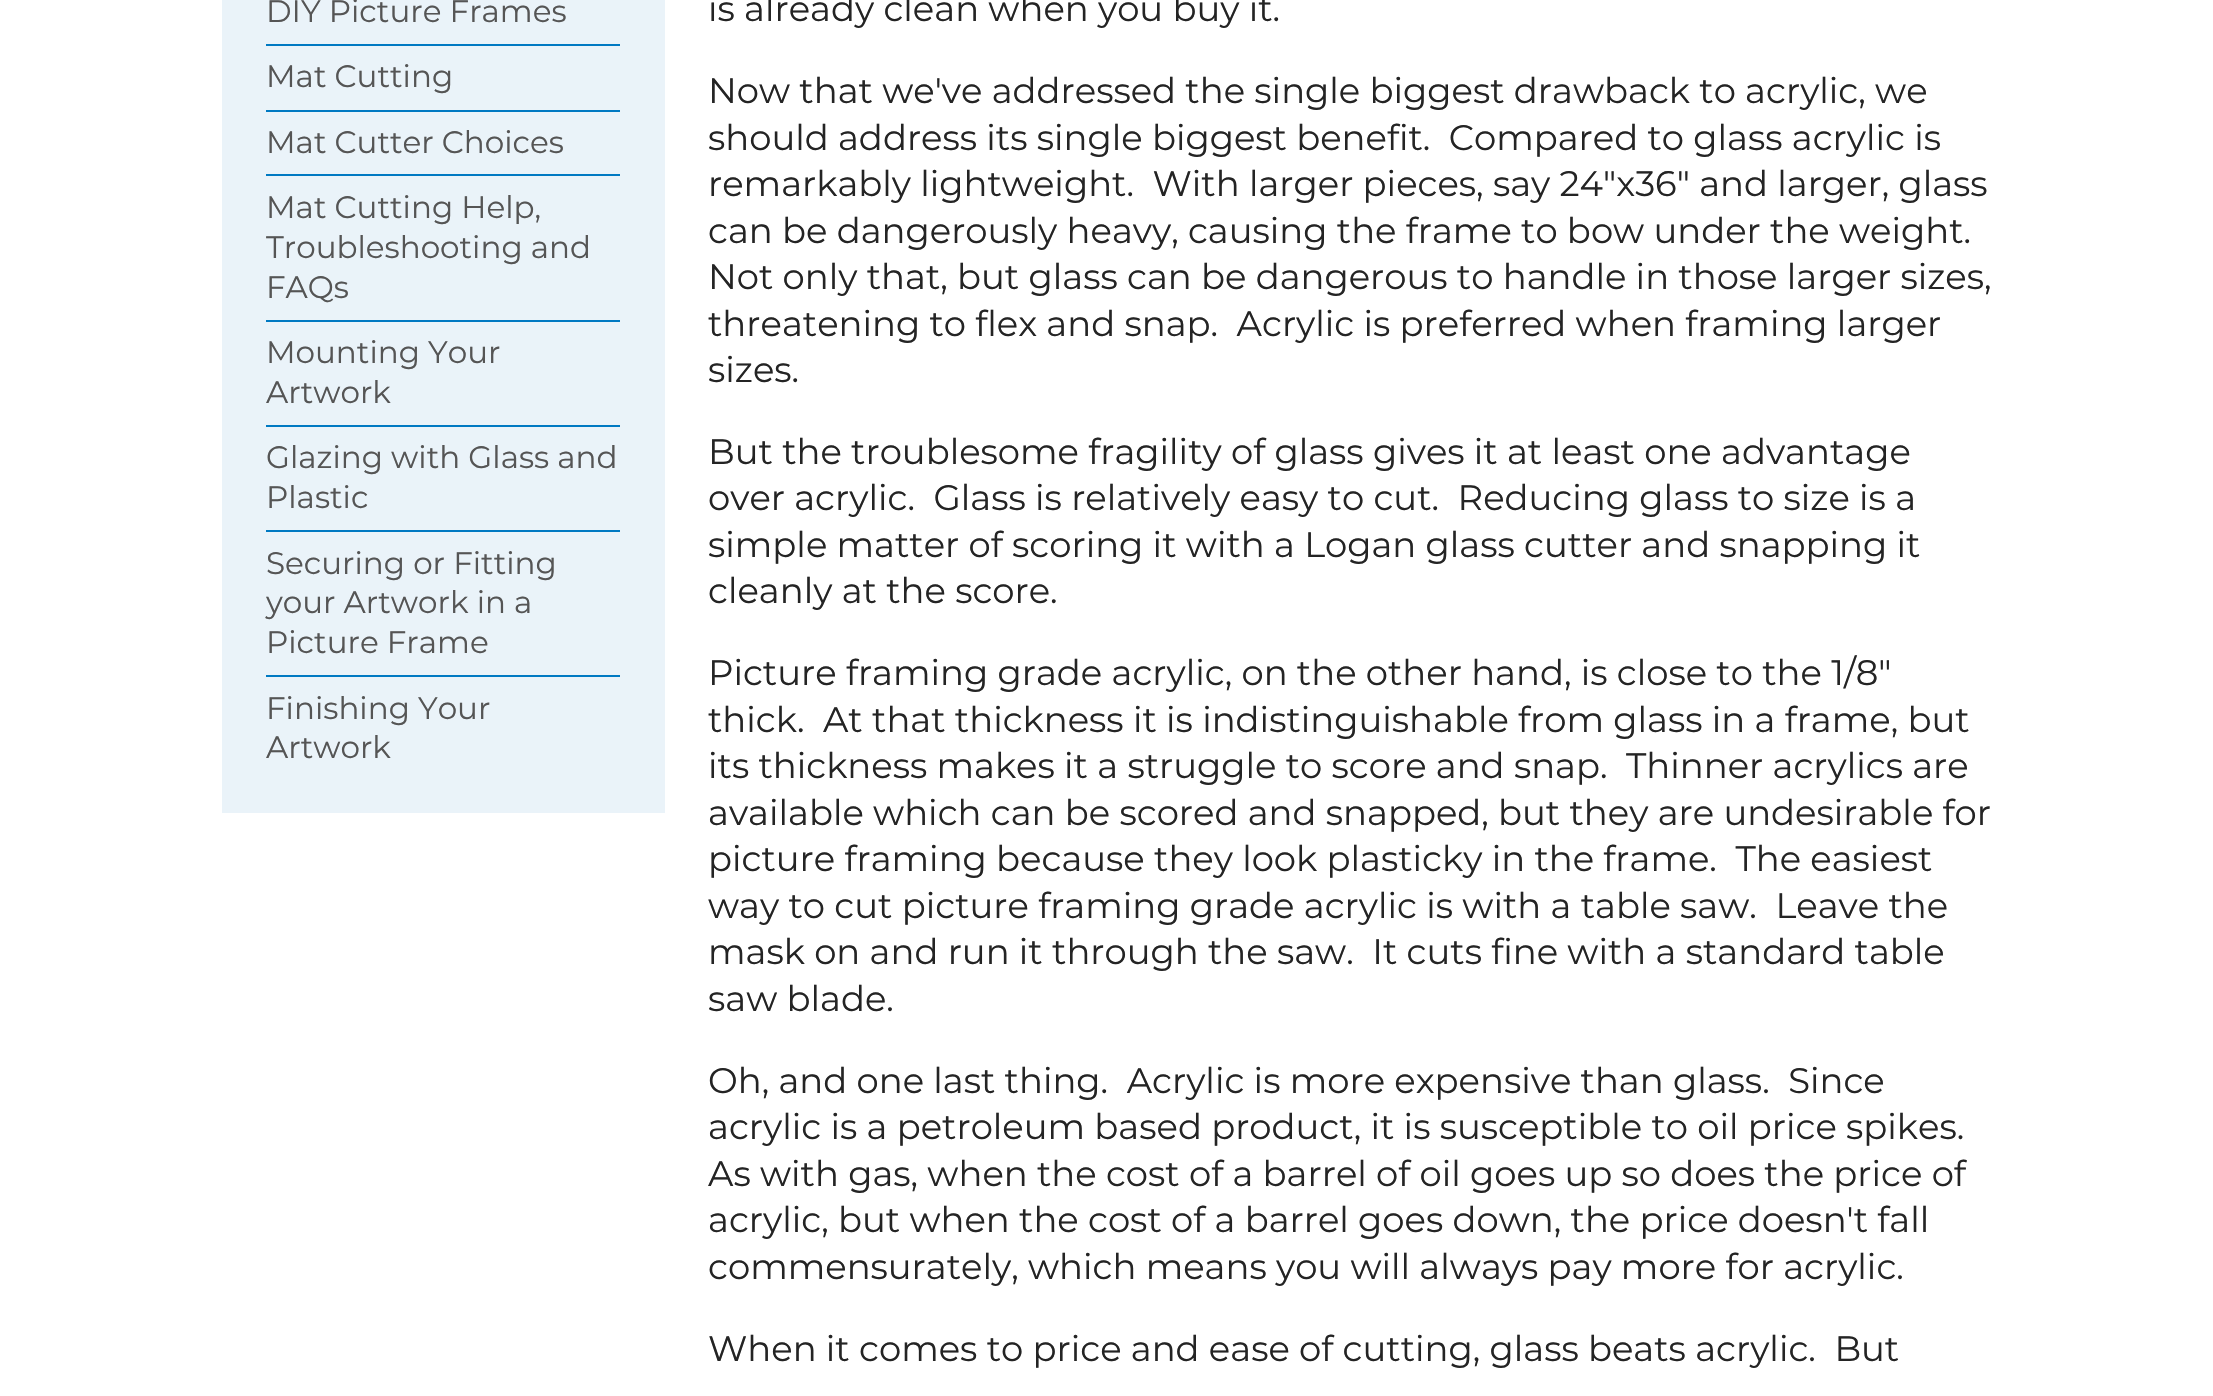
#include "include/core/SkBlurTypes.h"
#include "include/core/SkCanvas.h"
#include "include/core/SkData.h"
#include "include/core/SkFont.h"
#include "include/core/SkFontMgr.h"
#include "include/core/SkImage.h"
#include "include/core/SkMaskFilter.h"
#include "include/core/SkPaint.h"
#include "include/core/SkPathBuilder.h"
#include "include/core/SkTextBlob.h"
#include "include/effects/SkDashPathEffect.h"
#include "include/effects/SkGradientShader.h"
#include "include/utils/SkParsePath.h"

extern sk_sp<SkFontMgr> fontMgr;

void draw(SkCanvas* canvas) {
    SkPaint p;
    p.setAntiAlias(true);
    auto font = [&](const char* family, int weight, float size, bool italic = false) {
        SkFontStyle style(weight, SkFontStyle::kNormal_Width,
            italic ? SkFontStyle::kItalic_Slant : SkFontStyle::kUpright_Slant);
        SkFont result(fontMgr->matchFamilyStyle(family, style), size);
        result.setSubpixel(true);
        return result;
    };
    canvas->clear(0xFFFFFFFF);
    p.setColor(0xFFEAF3F9);
    canvas->drawRect(SkRect::MakeLTRB(222, 0, 665, 813), p);
    auto font1 = font("Montserrat", 400, 31);
    p.setColor(0xFF555555);
    canvas->drawString("DIY Picture Frames", 266, 22, font1, p);
    p.setColor(0xFF0079C2);
    canvas->drawRect(SkRect::MakeLTRB(266, 44, 620, 46), p);
    p.setColor(0xFF555555);
    canvas->drawString("Mat Cutting", 266, 87, font1, p);
    p.setColor(0xFF0079C2);
    canvas->drawRect(SkRect::MakeLTRB(266, 110, 620, 112), p);
    p.setColor(0xFF555555);
    canvas->drawString("Mat Cutter Choices", 266, 153, font1, p);
    p.setColor(0xFF0079C2);
    canvas->drawRect(SkRect::MakeLTRB(266, 174, 620, 176), p);
    p.setColor(0xFF555555);
    {
        const struct { const char* s; float x, y; } items[] = {
            {"Mat Cutting Help,", 266, 218},
            {"Troubleshooting and", 266, 258},
            {"FAQs", 266, 298},
        };
        for (auto [s, x, y] : items) {
            canvas->drawString(s, x, y, font1, p);
        }
    }
    p.setColor(0xFF0079C2);
    canvas->drawRect(SkRect::MakeLTRB(266, 320, 620, 322), p);
    p.setColor(0xFF555555);
    canvas->drawString("Mounting Your", 266, 363, font1, p);
    canvas->drawString("Artwork", 266, 403, font1, p);
    p.setColor(0xFF0079C2);
    canvas->drawRect(SkRect::MakeLTRB(266, 425, 620, 427), p);
    p.setColor(0xFF555555);
    canvas->drawString("Glazing with Glass and", 266, 468, font1, p);
    canvas->drawString("Plastic", 266, 508, font1, p);
    p.setColor(0xFF0079C2);
    canvas->drawRect(SkRect::MakeLTRB(266, 530, 620, 532), p);
    p.setColor(0xFF555555);
    {
        const struct { const char* s; float x, y; } items[] = {
            {"Securing or Fitting", 266, 574},
            {"your Artwork in a", 266, 613},
            {"Picture Frame", 266, 653},
        };
        for (auto [s, x, y] : items) {
            canvas->drawString(s, x, y, font1, p);
        }
    }
    p.setColor(0xFF0079C2);
    canvas->drawRect(SkRect::MakeLTRB(266, 675, 620, 677), p);
    p.setColor(0xFF555555);
    canvas->drawString("Finishing Your", 266, 719, font1, p);
    canvas->drawString("Artwork", 266, 758, font1, p);
    auto font2 = font("Montserrat", 400, 35.4f);
    p.setColor(0xFF242424);
    {
        const struct { const char* s; float x, y; } items[] = {
            {"is already clean when you buy it.", 708, 21},
            {"Now that we've addressed the single biggest drawback to acrylic, we", 708, 103},
            {"should address its single biggest benefit.  Compared to glass acrylic is", 708, 150},
            {"remarkably lightweight.  With larger pieces, say 24\"x36\" and larger, glass", 708, 196},
            {"can be dangerously heavy, causing the frame to bow under the weight.", 708, 243},
            {"Not only that, but glass can be dangerous to handle in those larger sizes,", 708, 289},
            {"threatening to flex and snap.  Acrylic is preferred when framing larger", 708, 336},
            {"sizes.", 708, 382},
            {"But the troublesome fragility of glass gives it at least one advantage", 708, 464},
            {"over acrylic.  Glass is relatively easy to cut.  Reducing glass to size is a", 708, 510},
            {"simple matter of scoring it with a Logan glass cutter and snapping it", 708, 557},
            {"cleanly at the score.", 708, 603},
            {"Picture framing grade acrylic, on the other hand, is close to the 1/8\"", 708, 685},
            {"thick.  At that thickness it is indistinguishable from glass in a frame, but", 708, 732},
            {"its thickness makes it a struggle to score and snap.  Thinner acrylics are", 708, 778},
            {"available which can be scored and snapped, but they are undesirable for", 708, 825},
            {"picture framing because they look plasticky in the frame.  The easiest", 708, 871},
            {"way to cut picture framing grade acrylic is with a table saw.  Leave the", 708, 918},
            {"mask on and run it through the saw.  It cuts fine with a standard table", 708, 964},
            {"saw blade.", 708, 1011},
            {"Oh, and one last thing.  Acrylic is more expensive than glass.  Since", 708, 1093},
            {"acrylic is a petroleum based product, it is susceptible to oil price spikes.", 708, 1139},
            {"As with gas, when the cost of a barrel of oil goes up so does the price of", 708, 1186},
            {"acrylic, but when the cost of a barrel goes down, the price doesn't fall", 708, 1232},
            {"commensurately, which means you will always pay more for acrylic.", 708, 1279},
            {"When it comes to price and ease of cutting, glass beats acrylic.  But", 708, 1361},
        };
        for (auto [s, x, y] : items) {
            canvas->drawString(s, x, y, font2, p);
        }
    }
}
